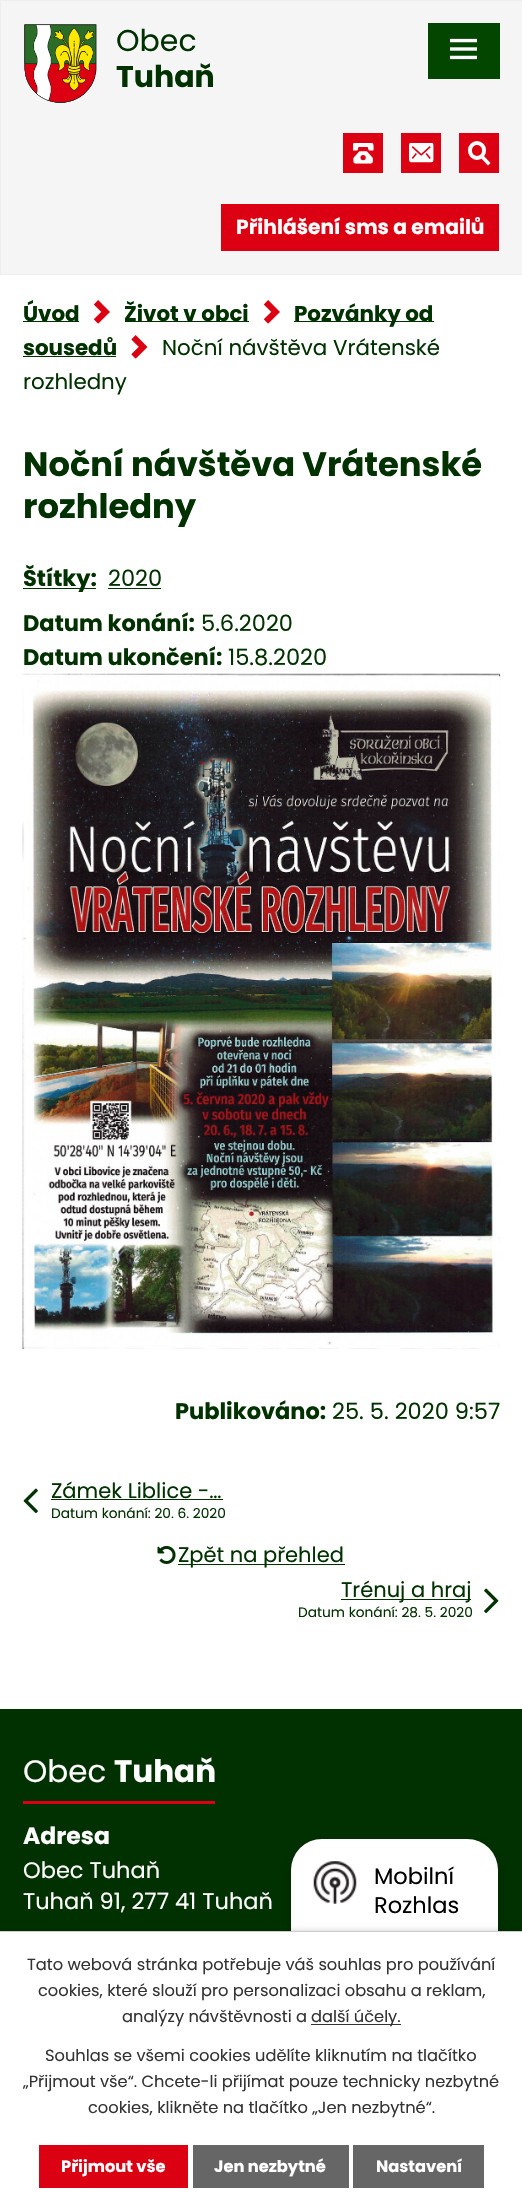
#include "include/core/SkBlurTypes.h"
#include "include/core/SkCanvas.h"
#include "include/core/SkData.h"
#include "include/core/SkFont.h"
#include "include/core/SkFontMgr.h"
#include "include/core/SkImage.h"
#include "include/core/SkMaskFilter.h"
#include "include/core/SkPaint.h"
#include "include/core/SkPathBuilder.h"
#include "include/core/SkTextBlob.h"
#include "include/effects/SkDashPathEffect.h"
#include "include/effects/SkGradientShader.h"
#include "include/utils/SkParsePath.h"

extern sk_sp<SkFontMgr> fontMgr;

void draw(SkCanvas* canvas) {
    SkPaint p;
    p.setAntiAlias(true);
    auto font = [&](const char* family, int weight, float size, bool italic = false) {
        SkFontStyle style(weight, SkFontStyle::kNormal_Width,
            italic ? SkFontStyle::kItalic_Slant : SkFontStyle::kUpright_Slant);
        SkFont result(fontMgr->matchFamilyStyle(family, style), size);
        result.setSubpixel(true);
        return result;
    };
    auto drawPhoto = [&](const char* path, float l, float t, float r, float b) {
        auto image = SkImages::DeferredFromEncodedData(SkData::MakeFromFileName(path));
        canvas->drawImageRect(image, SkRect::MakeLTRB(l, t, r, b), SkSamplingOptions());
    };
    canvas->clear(0xFFFFFFFF);
    p.setColor(0xFFF5F5F5);
    canvas->drawRect(SkRect::MakeLTRB(0.5f, 0.5f, 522.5f, 274.5f), p);
    p.setStyle(SkPaint::kStroke_Style);
    p.setStrokeWidth(1);
    p.setColor(0xFFEEEEEE);
    canvas->drawRect(SkRect::MakeLTRB(0.5f, 0.5f, 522.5f, 274.5f), p);
    p.setStyle(SkPaint::kFill_Style);
    p.setColor(0xFF024600);
    canvas->drawRect(SkRect::MakeLTRB(428, 23, 500, 79), p);
    drawPhoto("media/1.png", 450, 38, 477, 60);
    drawPhoto("media/2.png", 24, 24, 97, 103);
    auto font1 = font("Poppins", 400, 30);
    p.setColor(0xFF013100);
    canvas->drawString("Obec", 116, 51, font1, p);
    auto font2 = font("Poppins", 700, 30);
    canvas->drawString("Tuhaň", 116, 87, font2, p);
    p.setColor(0xFFDB0012);
    canvas->drawRect(SkRect::MakeLTRB(343, 133, 383, 173), p);
    drawPhoto("media/3.png", 353, 143, 374, 164);
    canvas->drawRect(SkRect::MakeLTRB(401, 133, 441, 173), p);
    drawPhoto("media/4.png", 409, 143, 434, 163);
    canvas->drawRect(SkRect::MakeLTRB(459, 133, 499, 173), p);
    p.setStyle(SkPaint::kStroke_Style);
    p.setStrokeWidth(4);
    p.setColor(0xFFFFFFFF);
    canvas->drawRoundRect(SkRect::MakeLTRB(470, 143, 484, 158), 7, 7, p);
    p.setStyle(SkPaint::kFill_Style);
    canvas->drawPath(SkPathBuilder().moveTo(482.5f, 154.5f).lineTo(490.5f, 163).lineTo(488, 165.5f).lineTo(480, 157).close().detach(), p);
    p.setColor(0xFFDB0012);
    canvas->drawRect(SkRect::MakeLTRB(221, 204, 499, 251), p);
    auto font3 = font("Poppins", 700, 20.25f);
    p.setColor(0xFFFFFFFF);
    canvas->drawString("Přihlášení sms a emailů", 236, 234, font3, p);
    p.setColor(0xFF013100);
    canvas->drawRect(SkRect::MakeLTRB(23, 321, 79, 322), p);
    auto font4 = font("Poppins", 700, 21.4f);
    canvas->drawString("Úvod", 23, 321, font4, p);
    drawPhoto("media/5.png", 94, 300, 110, 324);
    canvas->drawRect(SkRect::MakeLTRB(125, 321, 249, 322), p);
    canvas->drawString("Život v obci", 124, 321, font4, p);
    drawPhoto("media/5.png", 264, 300, 280, 324);
    canvas->drawRect(SkRect::MakeLTRB(294, 321, 434, 322), p);
    canvas->drawString("Pozvánky od", 294, 321, font4, p);
    canvas->drawString("sousedů", 23, 355, font4, p);
    canvas->drawRect(SkRect::MakeLTRB(23, 356, 116, 357), p);
    drawPhoto("media/6.png", 131, 335, 148, 359);
    auto font5 = font("Poppins", 400, 21.4f);
    canvas->drawString("Noční návštěva Vrátenské", 162, 355, font5, p);
    canvas->drawString("rozhledny", 23, 389, font5, p);
    auto font6 = font("Poppins", 700, 33.75f);
    canvas->drawString("Noční návštěva Vrátenské", 23, 476, font6, p);
    canvas->drawString("rozhledny", 23, 518, font6, p);
    canvas->drawRect(SkRect::MakeLTRB(23, 588, 96, 589), p);
    auto font7 = font("Poppins", 700, 22.5f);
    canvas->drawString("Štítky:", 23, 586, font7, p);
    auto font8 = font("Poppins", 400, 22.5f);
    canvas->drawString("2020", 108, 586, font8, p);
    canvas->drawRect(SkRect::MakeLTRB(108, 588, 161, 589), p);
    canvas->drawString("Datum konání:", 23, 631, font7, p);
    canvas->drawString("5.6.2020", 201, 631, font8, p);
    canvas->drawString("Datum ukončení:", 23, 665, font7, p);
    canvas->drawString("15.8.2020", 228, 665, font8, p);
    drawPhoto("media/7.png", 22, 673, 500, 1349);
    canvas->drawString("Publikováno:", 175, 1419, font7, p);
    canvas->drawString("25. 5. 2020 9:57", 332, 1419, font8, p);
    drawPhoto("media/8.png", 23, 1488, 38, 1513);
    auto font9 = font("Poppins", 400, 21);
    canvas->drawString("Zámek Liblice -…", 51, 1498, font9, p);
    canvas->drawRect(SkRect::MakeLTRB(51, 1499, 223, 1500), p);
    auto font10 = font("Poppins", 400, 13.75f);
    canvas->drawString("Datum konání: 20. 6. 2020", 51, 1518, font10, p);
    drawPhoto("media/9.png", 157, 1545, 176, 1564);
    canvas->drawRect(SkRect::MakeLTRB(178, 1564, 345, 1565), p);
    canvas->drawString("Zpět na přehled", 178, 1562, font9, p);
    canvas->drawRect(SkRect::MakeLTRB(341, 1599, 471, 1600), p);
    canvas->drawString("Trénuj a hraj", 341, 1597, font9, p);
    canvas->drawString("Datum konání: 28. 5. 2020", 298, 1617, font10, p);
    drawPhoto("media/10.png", 484, 1588, 499, 1613);
    canvas->drawRect(SkRect::MakeLTRB(0, 1709, 522, 1931), p);
    p.setColor(0x33000000);
    p.setMaskFilter(SkMaskFilter::MakeBlur(kNormal_SkBlurStyle, 6));
    canvas->drawRoundRect(SkRect::MakeLTRB(291, 1843, 498, 2030), 31, 31, p);
    p.setMaskFilter(nullptr);
    p.setColor(0xFFFFFFFF);
    canvas->drawRoundRect(SkRect::MakeLTRB(291, 1839, 498, 2026), 31, 31, p);
    drawPhoto("media/11.png", 313, 1861, 357, 1904);
    p.setColor(0xFF000000);
    canvas->drawString("Mobilní", 374, 1884, font8, p);
    canvas->drawString("Rozhlas", 374, 1913, font8, p);
    p.setColor(0xFFDB0012);
    canvas->drawRect(SkRect::MakeLTRB(23, 1801, 215, 1804), p);
    auto font11 = font("Poppins", 400, 31);
    p.setColor(0xFFFFFFFF);
    canvas->drawString("Obec", 23, 1782, font11, p);
    auto font12 = font("Poppins", 700, 31);
    canvas->drawString("Tuhaň", 114, 1782, font12, p);
    auto font13 = font("Poppins", 700, 23.5f);
    canvas->drawString("Adresa", 23, 1844, font13, p);
    canvas->drawString("Obec Tuhaň", 23, 1878, font8, p);
    canvas->drawString("Tuhaň 91, 277 41 Tuhaň", 23, 1909, font8, p);
    p.setColor(0x33000000);
    p.setMaskFilter(SkMaskFilter::MakeBlur(kNormal_SkBlurStyle, 3));
    canvas->drawRect(SkRect::MakeLTRB(0, 1931, 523, 2206), p);
    p.setMaskFilter(nullptr);
    p.setColor(0xFFFFFFFF);
    canvas->drawRect(SkRect::MakeLTRB(0, 1932, 522, 2206), p);
    p.setColor(0xFFCCCCCC);
    canvas->drawRect(SkRect::MakeLTRB(0, 1931, 522, 1932), p);
    auto font14 = font("Poppins", 400, 16.25f);
    p.setColor(0xFF333333);
    {
        const struct { const char* s; float x, y; } items[] = {
            {"Tato webová stránka potřebuje váš souhlas pro používání", 27, 1970},
            {"cookies, které slouží pro personalizaci obsahu a reklam,", 38, 1996},
            {"analýzy návštěvnosti a", 122, 2022},
        };
        for (auto [s, x, y] : items) {
            canvas->drawString(s, x, y, font14, p);
        }
    }
    canvas->drawRect(SkRect::MakeLTRB(311, 2024, 401, 2025), p);
    {
        const struct { const char* s; float x, y; } items[] = {
            {"další účely.", 311, 2022},
            {"Souhlas se všemi cookies udělíte kliknutím na tlačítko", 45, 2061},
            {"„Přijmout vše“. Chcete-li přijímat pouze technicky nezbytné", 23, 2087},
            {"cookies, klikněte na tlačítko „Jen nezbytné“.", 88, 2113},
        };
        for (auto [s, x, y] : items) {
            canvas->drawString(s, x, y, font14, p);
        }
    }
    p.setColor(0xFFDB0012);
    canvas->drawRect(SkRect::MakeLTRB(39, 2145, 188, 2188), p);
    auto font15 = font("Poppins", 700, 16.25f);
    p.setColor(0xFFFFFFFF);
    canvas->drawString("Přijmout vše", 61, 2172, font15, p);
    p.setColor(0xFF666666);
    canvas->drawRect(SkRect::MakeLTRB(193, 2145, 349, 2188), p);
    p.setColor(0xFFFFFFFF);
    canvas->drawString("Jen nezbytné", 214, 2172, font15, p);
    p.setColor(0xFF666666);
    canvas->drawRect(SkRect::MakeLTRB(353, 2145, 484, 2188), p);
    p.setColor(0xFFFFFFFF);
    canvas->drawString("Nastavení", 376, 2172, font15, p);
}
